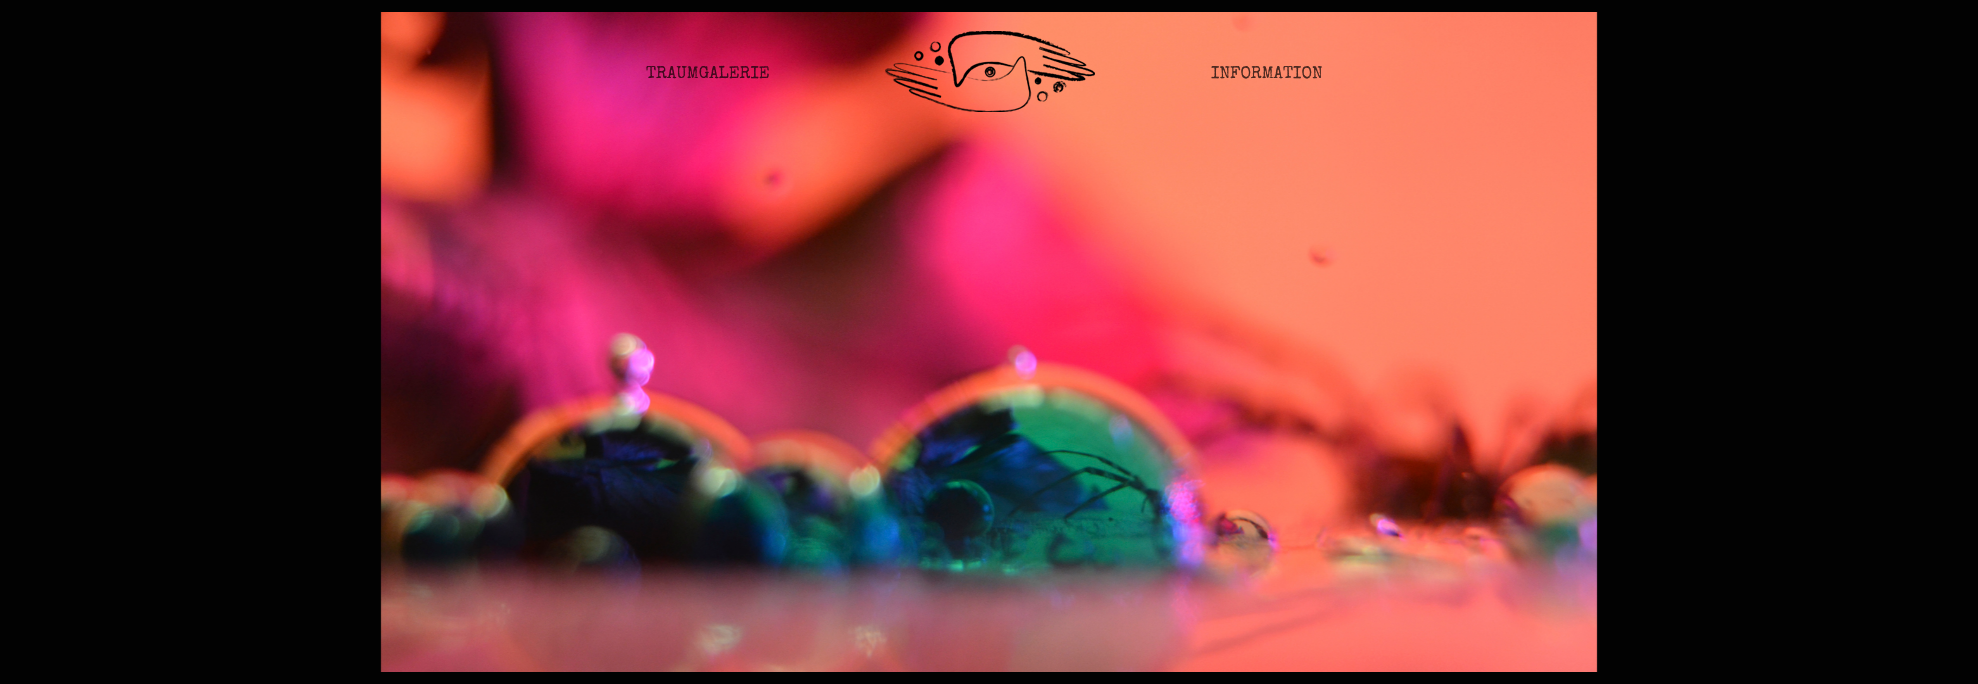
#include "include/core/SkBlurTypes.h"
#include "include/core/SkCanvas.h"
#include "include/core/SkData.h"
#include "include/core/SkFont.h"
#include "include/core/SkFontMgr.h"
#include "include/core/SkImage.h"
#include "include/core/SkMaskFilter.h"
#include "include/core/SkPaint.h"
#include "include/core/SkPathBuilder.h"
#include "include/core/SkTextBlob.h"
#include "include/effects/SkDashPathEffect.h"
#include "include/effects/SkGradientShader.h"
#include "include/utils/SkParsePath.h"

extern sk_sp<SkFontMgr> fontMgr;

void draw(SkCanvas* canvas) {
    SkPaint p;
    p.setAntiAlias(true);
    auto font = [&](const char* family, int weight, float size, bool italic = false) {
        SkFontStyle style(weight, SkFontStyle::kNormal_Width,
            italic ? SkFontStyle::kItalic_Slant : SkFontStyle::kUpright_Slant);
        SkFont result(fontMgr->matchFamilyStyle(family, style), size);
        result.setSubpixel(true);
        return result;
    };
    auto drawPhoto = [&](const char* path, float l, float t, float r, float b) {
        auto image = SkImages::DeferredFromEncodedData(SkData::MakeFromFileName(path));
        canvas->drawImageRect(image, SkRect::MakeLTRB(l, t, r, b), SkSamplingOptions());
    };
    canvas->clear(0xFF020202);
    drawPhoto("media/1.png", 380, 12, 1598, 672);
    auto font1 = font("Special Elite", 400, 17);
    p.setColor(0xFF41081D);
    canvas->drawString("TRAUMGALERIE", 646, 78, font1, p);
    drawPhoto("media/2.png", 885, 31, 1095, 112);
    p.setColor(0xFF4C2920);
    canvas->drawString("INFORMATION", 1211, 78, font1, p);
}
